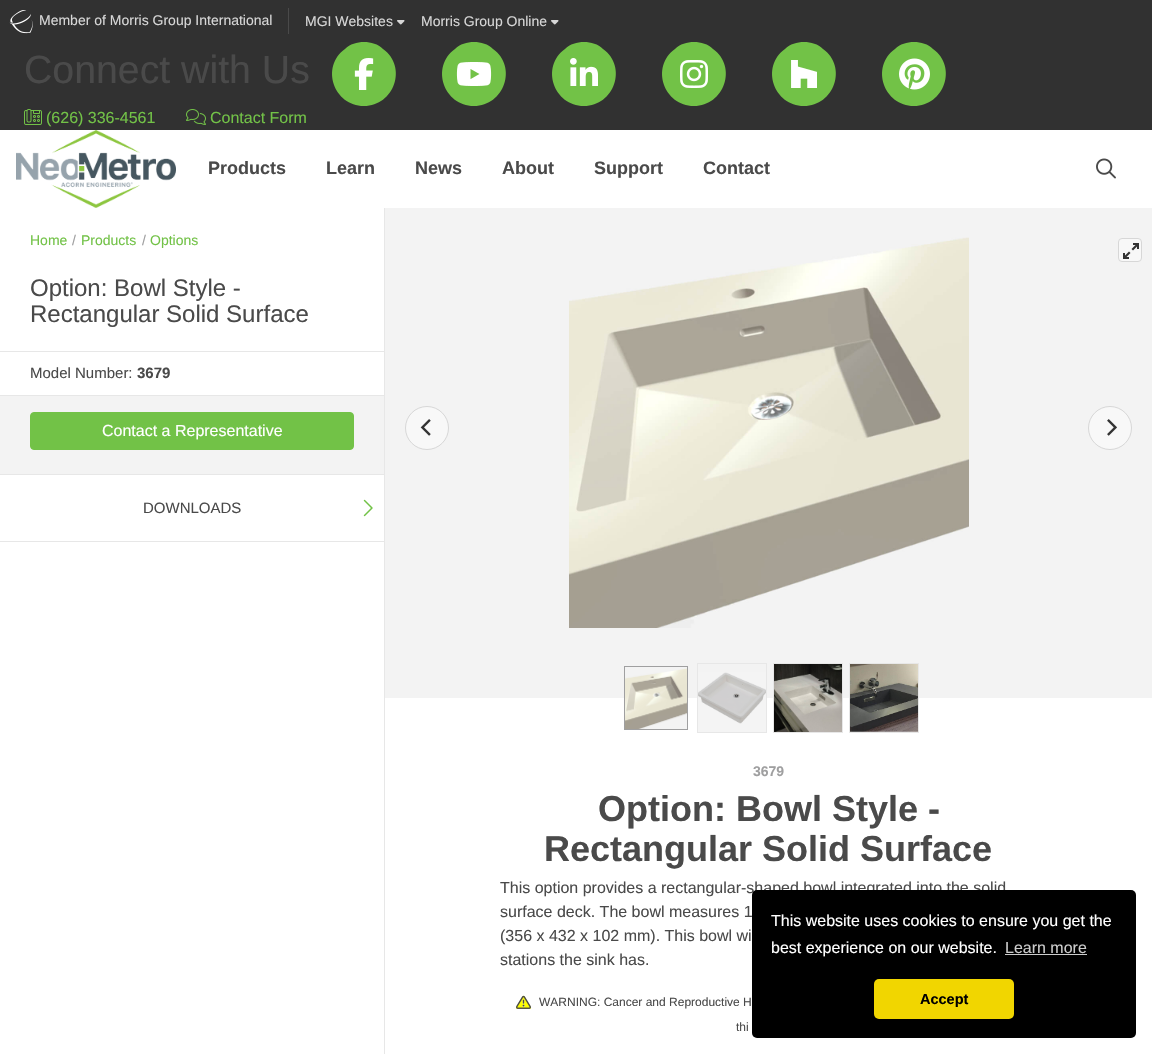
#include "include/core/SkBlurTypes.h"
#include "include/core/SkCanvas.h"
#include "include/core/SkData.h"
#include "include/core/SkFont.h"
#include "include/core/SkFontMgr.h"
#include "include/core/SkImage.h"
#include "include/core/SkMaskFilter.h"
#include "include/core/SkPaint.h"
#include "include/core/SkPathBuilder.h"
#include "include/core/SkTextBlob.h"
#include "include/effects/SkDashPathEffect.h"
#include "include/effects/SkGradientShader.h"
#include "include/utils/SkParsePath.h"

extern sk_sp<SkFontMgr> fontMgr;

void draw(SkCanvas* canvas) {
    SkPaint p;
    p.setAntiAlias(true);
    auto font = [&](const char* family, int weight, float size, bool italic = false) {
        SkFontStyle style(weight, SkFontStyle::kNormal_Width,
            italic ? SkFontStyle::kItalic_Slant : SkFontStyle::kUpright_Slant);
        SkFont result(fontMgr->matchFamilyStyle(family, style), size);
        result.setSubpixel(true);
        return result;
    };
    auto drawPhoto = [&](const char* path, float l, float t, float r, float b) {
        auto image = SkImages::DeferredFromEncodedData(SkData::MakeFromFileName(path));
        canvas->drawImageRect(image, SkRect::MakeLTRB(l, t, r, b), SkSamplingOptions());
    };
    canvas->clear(0xFFFFFFFF);
    p.setColor(0xFF313131);
    canvas->drawRect(SkRect::MakeLTRB(0, 0, 1152, 130), p);
    p.setColor(0xFF4A4A4A);
    canvas->drawRect(SkRect::MakeLTRB(288, 8, 289, 34), p);
    drawPhoto("media/1.png", 9, 10, 33, 34);
    auto font1 = font("Liberation Sans", 400, 14);
    p.setColor(0xFFD7D7D7);
    canvas->drawString("Member of Morris Group International", 39, 25, font1, p);
    canvas->drawString("MGI Websites", 305, 26, font1, p);
    drawPhoto("media/2.png", 397, 20, 405, 25);
    canvas->drawString("Morris Group Online", 421, 26, font1, p);
    drawPhoto("media/2.png", 551, 20, 559, 25);
    auto font2 = font("Liberation Sans", 400, 39.25f);
    p.setColor(0xFF4A4A4A);
    canvas->drawString("Connect with Us", 24, 83, font2, p);
    p.setColor(0xFF72C247);
    canvas->drawPath(SkPathBuilder().moveTo(364, 106).cubicTo(394, 106, 408, 67, 383, 49).cubicTo(378, 44, 371, 42, 364, 42).cubicTo(357, 42, 350, 44, 345, 49).cubicTo(320, 67, 334, 106, 364, 106).close().detach(), p);
    drawPhoto("media/3.png", 354, 58, 374, 90);
    canvas->drawPath(SkPathBuilder().moveTo(474, 106).cubicTo(504, 106, 518, 67, 493, 49).cubicTo(488, 44, 481, 42, 474, 42).cubicTo(467, 42, 460, 44, 455, 49).cubicTo(430, 67, 444, 106, 474, 106).close().detach(), p);
    drawPhoto("media/4.png", 456, 62, 492, 86);
    canvas->drawPath(SkPathBuilder().moveTo(584, 106).cubicTo(614, 106, 628, 67, 603, 49).cubicTo(598, 44, 591, 42, 584, 42).cubicTo(577, 42, 570, 44, 565, 49).cubicTo(540, 67, 554, 106, 584, 106).close().detach(), p);
    drawPhoto("media/5.png", 570, 58, 598, 86);
    canvas->drawPath(SkPathBuilder().moveTo(694, 106).cubicTo(724, 106, 738, 67, 713, 49).cubicTo(708, 44, 701, 42, 694, 42).cubicTo(687, 42, 680, 44, 675, 49).cubicTo(650, 67, 664, 106, 694, 106).close().detach(), p);
    drawPhoto("media/6.png", 680, 60, 708, 88);
    canvas->drawPath(SkPathBuilder().moveTo(804, 106).cubicTo(834, 106, 848, 67, 823, 49).cubicTo(818, 44, 811, 42, 804, 42).cubicTo(797, 42, 790, 44, 785, 49).cubicTo(760, 67, 774, 106, 804, 106).close().detach(), p);
    drawPhoto("media/7.png", 791, 60, 817, 88);
    canvas->drawPath(SkPathBuilder().moveTo(914, 106).cubicTo(944, 106, 958, 67, 933, 49).cubicTo(928, 44, 921, 42, 914, 42).cubicTo(907, 42, 900, 44, 895, 49).cubicTo(870, 67, 884, 106, 914, 106).close().detach(), p);
    drawPhoto("media/8.png", 899, 58, 930, 90);
    drawPhoto("media/9.png", 24, 109, 42, 125);
    auto font3 = font("Liberation Sans", 400, 16);
    canvas->drawString("(626) 336-4561", 46, 123, font3, p);
    drawPhoto("media/10.png", 186, 109, 206, 125);
    canvas->drawString("Contact Form", 210, 123, font3, p);
    drawPhoto("media/11.png", 16, 130, 176, 208);
    auto font4 = font("Liberation Sans", 700, 18);
    p.setColor(0xFF4A4A4A);
    {
        const struct { const char* s; float x, y; } items[] = {
            {"Products", 208, 174},
            {"Learn", 326, 174},
            {"News", 415, 174},
            {"About", 502, 174},
            {"Support", 594, 174},
            {"Contact", 703, 174},
        };
        for (auto [s, x, y] : items) {
            canvas->drawString(s, x, y, font4, p);
        }
    }
    drawPhoto("media/12.png", 1096, 158, 1116, 179);
    p.setColor(0xFF72C247);
    canvas->drawString("Home", 30, 245, font1, p);
    p.setColor(0xFF9F9FA0);
    canvas->drawString("/", 72, 245, font1, p);
    p.setColor(0xFF72C247);
    canvas->drawString("Products", 81, 245, font1, p);
    p.setColor(0xFF9F9FA0);
    canvas->drawString("/", 142, 245, font1, p);
    p.setColor(0xFF72C247);
    canvas->drawString("Options", 150, 245, font1, p);
    auto font5 = font("Liberation Sans", 400, 24);
    p.setColor(0xFF4A4A4A);
    canvas->drawString("Option: Bowl Style -", 30, 296, font5, p);
    canvas->drawString("Rectangular Solid Surface", 30, 322, font5, p);
    p.setColor(0xFFE7E7E7);
    canvas->drawRect(SkRect::MakeLTRB(0, 351, 384, 352), p);
    canvas->drawRect(SkRect::MakeLTRB(0, 395, 384, 396), p);
    auto font6 = font("Liberation Sans", 400, 15);
    p.setColor(0xFF4A4A4A);
    canvas->drawString("Model Number:", 30, 378, font6, p);
    auto font7 = font("Liberation Sans", 700, 15);
    canvas->drawString("3679", 137, 378, font7, p);
    p.setColor(0xFFE7E7E7);
    canvas->drawRect(SkRect::MakeLTRB(0, 474, 384, 475), p);
    p.setColor(0xFFF3F3F3);
    canvas->drawRect(SkRect::MakeLTRB(0, 396, 384, 474), p);
    p.setColor(0xFF72C247);
    canvas->drawRoundRect(SkRect::MakeLTRB(30.5f, 412.5f, 353.5f, 449.5f), 3.5f, 3.5f, p);
    p.setStyle(SkPaint::kStroke_Style);
    p.setStrokeWidth(1);
    canvas->drawRoundRect(SkRect::MakeLTRB(30.5f, 412.5f, 353.5f, 449.5f), 3.5f, 3.5f, p);
    p.setStyle(SkPaint::kFill_Style);
    p.setColor(0xFFFFFFFF);
    canvas->drawString("Contact a Representative", 102, 436, font3, p);
    p.setColor(0xFFE7E7E7);
    canvas->drawRect(SkRect::MakeLTRB(0, 541, 384, 542), p);
    p.setColor(0xFF4A4A4A);
    canvas->drawString("DOWNLOADS", 143, 513, font6, p);
    drawPhoto("media/13.png", 363, 499, 373, 517);
    p.setColor(0xFFF3F3F3);
    canvas->drawRect(SkRect::MakeLTRB(385, 208, 1152, 698), p);
    p.setColor(0xFFE7E7E7);
    canvas->drawRect(SkRect::MakeLTRB(384, 208, 385, 1054), p);
    drawPhoto("media/14.png", 569, 237, 969, 628);
    p.setColor(0xFFF8F8F8);
    canvas->drawRoundRect(SkRect::MakeLTRB(1118.5f, 238.5f, 1141.5f, 261.5f), 3.5f, 3.5f, p);
    p.setStyle(SkPaint::kStroke_Style);
    p.setColor(0xFFD7D7D7);
    canvas->drawRoundRect(SkRect::MakeLTRB(1118.5f, 238.5f, 1141.5f, 261.5f), 3.5f, 3.5f, p);
    drawPhoto("media/15.png", 1123, 243, 1139, 259);
    p.setStyle(SkPaint::kFill_Style);
    p.setColor(0xFFF8F8F8);
    canvas->drawCircle(427, 428, 21.5f, p);
    p.setStyle(SkPaint::kStroke_Style);
    p.setColor(0xFFD7D7D7);
    canvas->drawCircle(427, 428, 21.5f, p);
    drawPhoto("media/16.png", 420, 419, 431, 436);
    p.setStyle(SkPaint::kFill_Style);
    p.setColor(0xFFF8F8F8);
    canvas->drawCircle(1110, 428, 21.5f, p);
    p.setStyle(SkPaint::kStroke_Style);
    p.setColor(0xFFD7D7D7);
    canvas->drawCircle(1110, 428, 21.5f, p);
    drawPhoto("media/17.png", 1107, 419, 1117, 436);
    p.setColor(0xFF9F9FA0);
    canvas->drawRect(SkRect::MakeLTRB(624.5f, 666.5f, 687.5f, 729.5f), p);
    drawPhoto("media/18.png", 625, 668, 687, 729);
    p.setColor(0xFFE7E7E7);
    canvas->drawRect(SkRect::MakeLTRB(697.5f, 663.5f, 766.5f, 732.5f), p);
    drawPhoto("media/19.png", 698, 672, 766, 732);
    canvas->drawRect(SkRect::MakeLTRB(773.5f, 663.5f, 842.5f, 732.5f), p);
    drawPhoto("media/20.png", 774, 664, 842, 732);
    canvas->drawRect(SkRect::MakeLTRB(849.5f, 663.5f, 918.5f, 732.5f), p);
    drawPhoto("media/21.png", 850, 664, 918, 732);
    auto font8 = font("Liberation Sans", 700, 14);
    p.setStyle(SkPaint::kFill_Style);
    p.setColor(0xFF9F9FA0);
    canvas->drawString("3679", 753, 776, font8, p);
    auto font9 = font("Liberation Sans", 700, 36);
    p.setColor(0xFF4A4A4A);
    canvas->drawString("Option: Bowl Style -", 598, 821, font9, p);
    canvas->drawString("Rectangular Solid Surface", 544, 861, font9, p);
    {
        const struct { const char* s; float x, y; } items[] = {
            {"This option provides a rectangular-shaped bowl integrated into the solid", 500, 893},
            {"surface deck. The bowl measures 1", 500, 917},
            {"(356 x 432 x 102 mm). This bowl wi", 500, 941},
            {"stations the sink has.", 500, 965},
        };
        for (auto [s, x, y] : items) {
            canvas->drawString(s, x, y, font3, p);
        }
    }
    drawPhoto("media/22.png", 516, 995, 531, 1009);
    drawPhoto("media/23.png", 516, 995, 531, 1009);
    auto font10 = font("Liberation Sans", 400, 12);
    canvas->drawString("WARNING: Cancer and Reproductive H", 539, 1006, font10, p);
    canvas->drawString("thi", 736, 1031, font10, p);
    p.setColor(0xFF000000);
    canvas->drawRoundRect(SkRect::MakeLTRB(752, 890, 1136, 1038), 5, 5, p);
    p.setColor(0xFFFFFFFF);
    canvas->drawString("This website uses cookies to ensure you get the", 771, 926, font3, p);
    canvas->drawString("best experience on our website.", 771, 953, font3, p);
    p.setColor(0xFFCCCCCC);
    canvas->drawString("Learn more", 1005, 953, font3, p);
    canvas->drawRect(SkRect::MakeLTRB(1005, 954, 1087, 955), p);
    p.setColor(0xFFF1D600);
    canvas->drawRoundRect(SkRect::MakeLTRB(874, 979, 1014, 1019), 5, 5, p);
    auto font11 = font("Liberation Sans", 700, 14.5f);
    p.setColor(0xFF000000);
    canvas->drawString("Accept", 920, 1004, font11, p);
}
